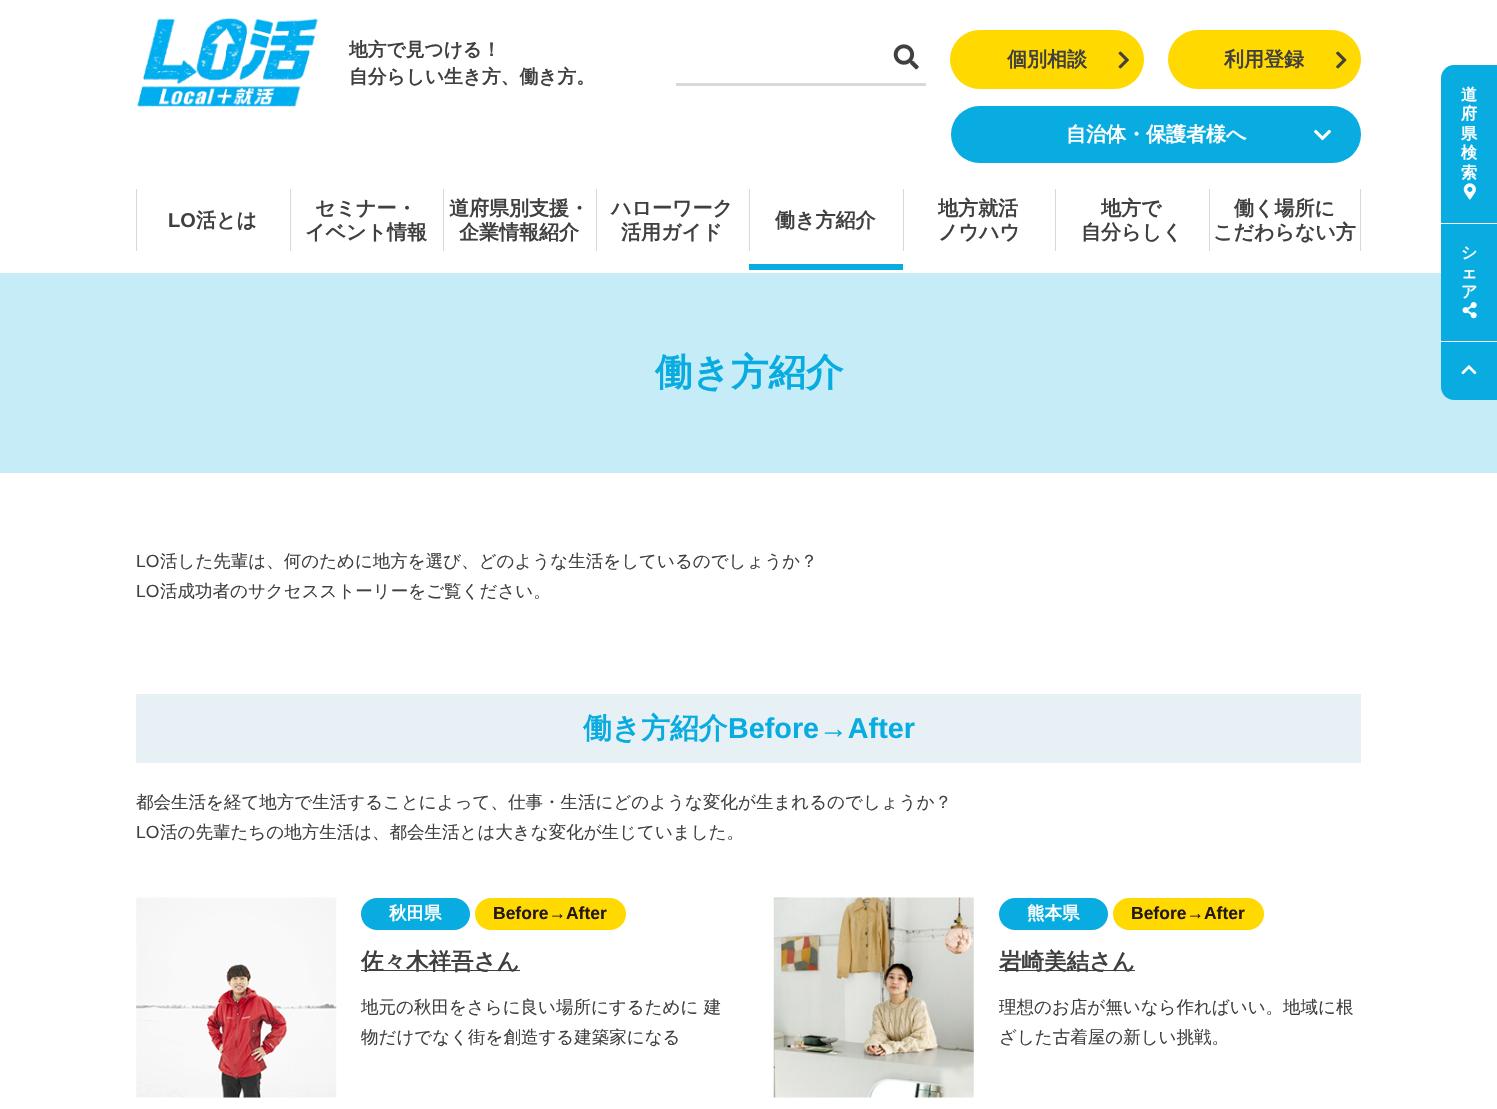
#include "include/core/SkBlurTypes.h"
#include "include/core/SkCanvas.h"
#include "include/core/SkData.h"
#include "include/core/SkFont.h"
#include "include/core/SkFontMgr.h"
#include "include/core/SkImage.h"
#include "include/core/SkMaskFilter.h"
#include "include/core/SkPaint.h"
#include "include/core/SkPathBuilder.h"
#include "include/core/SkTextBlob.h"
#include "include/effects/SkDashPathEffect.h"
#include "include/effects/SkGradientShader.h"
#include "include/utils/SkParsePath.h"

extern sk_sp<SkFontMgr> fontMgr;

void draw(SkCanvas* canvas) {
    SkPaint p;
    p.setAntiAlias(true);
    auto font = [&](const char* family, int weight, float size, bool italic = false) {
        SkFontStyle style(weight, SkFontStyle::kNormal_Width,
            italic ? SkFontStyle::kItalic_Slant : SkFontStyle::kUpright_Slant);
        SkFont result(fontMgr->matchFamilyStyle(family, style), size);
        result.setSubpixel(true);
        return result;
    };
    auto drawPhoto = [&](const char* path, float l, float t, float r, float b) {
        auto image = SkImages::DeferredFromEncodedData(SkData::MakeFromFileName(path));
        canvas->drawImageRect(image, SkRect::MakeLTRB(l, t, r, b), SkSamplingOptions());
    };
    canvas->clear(0xFFFFFFFF);
    drawPhoto("media/1.png", 137, 18, 318, 107);
    auto font1 = font("WenQuanYi Zen Hei", 700, 18.75f);
    p.setColor(0xFF404040);
    canvas->drawString("地方で見つける！", 349, 56, font1, p);
    canvas->drawString("自分らしい生き方、働き方。", 349, 83, font1, p);
    drawPhoto("media/2.png", 893, 44, 919, 70);
    p.setColor(0xFFD9D9D9);
    canvas->drawRect(SkRect::MakeLTRB(676, 83, 926, 86), p);
    p.setColor(0xFFFFD900);
    canvas->drawRoundRect(SkRect::MakeLTRB(950.5f, 30.5f, 1143.5f, 88.5f), 29, 29, p);
    p.setStyle(SkPaint::kStroke_Style);
    p.setStrokeWidth(1);
    canvas->drawRoundRect(SkRect::MakeLTRB(950.5f, 30.5f, 1143.5f, 88.5f), 29, 29, p);
    auto font2 = font("WenQuanYi Zen Hei", 700, 20);
    p.setStyle(SkPaint::kFill_Style);
    p.setColor(0xFF404040);
    canvas->drawString("個別相談", 1007, 66, font2, p);
    drawPhoto("media/3.png", 1118, 51, 1129, 69);
    p.setColor(0xFFFFD900);
    canvas->drawRoundRect(SkRect::MakeLTRB(1168.5f, 30.5f, 1360.5f, 88.5f), 29, 29, p);
    p.setStyle(SkPaint::kStroke_Style);
    canvas->drawRoundRect(SkRect::MakeLTRB(1168.5f, 30.5f, 1360.5f, 88.5f), 29, 29, p);
    p.setStyle(SkPaint::kFill_Style);
    p.setColor(0xFF404040);
    canvas->drawString("利用登録", 1224, 66, font2, p);
    drawPhoto("media/4.png", 1336, 51, 1347, 69);
    p.setColor(0xFF08ACE0);
    canvas->drawRoundRect(SkRect::MakeLTRB(951, 106, 1361, 163), 28.5f, 28.5f, p);
    p.setColor(0xFFFFFFFF);
    canvas->drawString("自治体・保護者様へ", 1066, 141, font2, p);
    drawPhoto("media/5.png", 1314, 129, 1331, 141);
    p.setColor(0xFFD9D9D9);
    canvas->drawRect(SkRect::MakeLTRB(136, 189, 137, 251), p);
    auto font3 = font("Liberation Sans", 700, 20);
    p.setColor(0xFF404040);
    canvas->drawString("LO", 168, 227, font3, p);
    canvas->drawString("活とは", 196, 227, font2, p);
    p.setColor(0xFFD9D9D9);
    canvas->drawRect(SkRect::MakeLTRB(290, 189, 291, 251), p);
    p.setColor(0xFF404040);
    canvas->drawString("セミナー・", 315, 215, font2, p);
    canvas->drawString("イベント情報", 305, 239, font2, p);
    p.setColor(0xFFD9D9D9);
    canvas->drawRect(SkRect::MakeLTRB(443, 189, 444, 251), p);
    p.setColor(0xFF404040);
    canvas->drawString("道府県別支援・", 449, 215, font2, p);
    canvas->drawString("企業情報紹介", 459, 239, font2, p);
    p.setColor(0xFFD9D9D9);
    canvas->drawRect(SkRect::MakeLTRB(596, 189, 597, 251), p);
    p.setColor(0xFF404040);
    canvas->drawString("ハローワーク", 611, 215, font2, p);
    canvas->drawString("活用ガイド", 621, 239, font2, p);
    p.setColor(0xFF08ACE0);
    canvas->drawRect(SkRect::MakeLTRB(749, 264, 903, 270), p);
    p.setColor(0xFFD9D9D9);
    canvas->drawRect(SkRect::MakeLTRB(749, 189, 750, 251), p);
    p.setColor(0xFF404040);
    canvas->drawString("働き方紹介", 775, 227, font2, p);
    p.setColor(0xFFD9D9D9);
    canvas->drawRect(SkRect::MakeLTRB(903, 189, 904, 251), p);
    p.setColor(0xFF404040);
    canvas->drawString("地方就活", 938, 215, font2, p);
    canvas->drawString("ノウハウ", 938, 239, font2, p);
    p.setColor(0xFFD9D9D9);
    canvas->drawRect(SkRect::MakeLTRB(1055, 189, 1056, 251), p);
    p.setColor(0xFF404040);
    canvas->drawString("地方で", 1101, 215, font2, p);
    canvas->drawString("自分らしく", 1081, 239, font2, p);
    p.setColor(0xFFD9D9D9);
    canvas->drawRect(SkRect::MakeLTRB(1209, 189, 1210, 251), p);
    p.setColor(0xFF404040);
    canvas->drawString("働く場所に", 1234, 215, font2, p);
    canvas->drawString("こだわらない方", 1213, 239, font2, p);
    p.setColor(0xFFD9D9D9);
    canvas->drawRect(SkRect::MakeLTRB(1360, 189, 1361, 251), p);
    p.setColor(0xFF08ACE0);
    canvas->drawPath(SkPathBuilder().moveTo(1454, 65).lineTo(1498, 65).lineTo(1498, 223).lineTo(1441, 223).lineTo(1441, 78).cubicTo(1441, 71, 1447, 65, 1454, 65).close().detach(), p);
    auto font4 = font("WenQuanYi Zen Hei", 700, 16);
    p.setColor(0xFFFFFFFF);
    {
        const struct { const char* s; float x, y; } items[] = {
            {"道", 1461, 100},
            {"府", 1461, 119},
            {"県", 1461, 139},
            {"検", 1461, 158},
            {"索", 1461, 178},
        };
        for (auto [s, x, y] : items) {
            canvas->drawString(s, x, y, font4, p);
        }
    }
    drawPhoto("media/6.png", 1463, 183, 1476, 200);
    p.setColor(0xFFC6ECF8);
    canvas->drawRect(SkRect::MakeLTRB(0, 273, 1497, 473), p);
    p.setColor(0xFF08ACE0);
    canvas->drawRect(SkRect::MakeLTRB(1441, 224, 1497, 341), p);
    p.setColor(0xFFFFFFFF);
    {
        const struct { const char* s; float x, y; } items[] = {
            {"シ", 1461, 258},
            {"ェ", 1461, 278},
            {"ア", 1461, 297},
        };
        for (auto [s, x, y] : items) {
            canvas->drawString(s, x, y, font4, p);
        }
    }
    drawPhoto("media/7.png", 1462, 302, 1477, 319);
    p.setColor(0xFF08ACE0);
    canvas->drawPath(SkPathBuilder().moveTo(1441, 341).lineTo(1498, 341).lineTo(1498, 400).lineTo(1454, 400).cubicTo(1447, 400, 1441, 394, 1441, 387).close().detach(), p);
    p.setColor(0xFFFFFFFF);
    canvas->drawRect(SkRect::MakeLTRB(1441, 341, 1497, 342), p);
    drawPhoto("media/8.png", 1461, 365, 1477, 375);
    auto font5 = font("WenQuanYi Zen Hei", 700, 37.5f);
    p.setColor(0xFF08ACE0);
    canvas->drawString("働き方紹介", 655, 385, font5, p);
    auto font6 = font("Liberation Sans", 400, 17.5f);
    p.setColor(0xFF404040);
    canvas->drawString("LO", 136, 567, font6, p);
    auto font7 = font("WenQuanYi Zen Hei", 500, 17.5f);
    canvas->drawString("活した先輩は、何のために地方を選び、どのような生活をしているのでしょうか？", 160, 567, font7, p);
    canvas->drawString("LO", 136, 597, font6, p);
    canvas->drawString("活成功者のサクセスストーリーをご覧ください。", 160, 597, font7, p);
    p.setColor(0xFFE7F0F5);
    canvas->drawRect(SkRect::MakeLTRB(136, 694, 1361, 763), p);
    auto font8 = font("WenQuanYi Zen Hei", 700, 28.75f);
    p.setColor(0xFF08ACE0);
    canvas->drawString("働き方紹介", 583, 738, font8, p);
    auto font9 = font("Liberation Sans", 700, 28.75f);
    canvas->drawString("Before→After", 728, 738, font9, p);
    p.setColor(0xFF404040);
    canvas->drawString("都会生活を経て地方で生活することによって、仕事・生活にどのような変化が生まれるのでしょうか？", 136, 808, font7, p);
    canvas->drawString("LO", 136, 838, font6, p);
    canvas->drawString("活の先輩たちの地方生活は、都会生活とは大きな変化が生じていました。", 160, 838, font7, p);
    drawPhoto("media/9.png", 136, 897, 337, 1098);
    p.setColor(0xFF08ACE0);
    canvas->drawRoundRect(SkRect::MakeLTRB(361, 898, 470, 930), 16, 16, p);
    auto font10 = font("WenQuanYi Zen Hei", 700, 17.5f);
    p.setColor(0xFFFFFFFF);
    canvas->drawString("秋田県", 389, 919, font10, p);
    p.setColor(0xFFFFD900);
    canvas->drawRoundRect(SkRect::MakeLTRB(475, 898, 626, 930), 16, 16, p);
    auto font11 = font("Liberation Sans", 700, 17.5f);
    p.setColor(0xFF231815);
    canvas->drawString("Before→After", 493, 919, font11, p);
    p.setColor(0xFF404040);
    canvas->drawRect(SkRect::MakeLTRB(361, 970, 520, 971), p);
    auto font12 = font("WenQuanYi Zen Hei", 700, 22.5f);
    canvas->drawString("佐々木祥吾さん", 361, 969, font12, p);
    canvas->drawString("地元の秋田をさらに良い場所にするために 建", 361, 1013, font7, p);
    canvas->drawString("物だけでなく街を創造する建築家になる", 361, 1043, font7, p);
    drawPhoto("media/10.png", 773, 897, 974, 1098);
    p.setColor(0xFF08ACE0);
    canvas->drawRoundRect(SkRect::MakeLTRB(999, 898, 1108, 930), 16, 16, p);
    p.setColor(0xFFFFFFFF);
    canvas->drawString("熊本県", 1027, 919, font10, p);
    p.setColor(0xFFFFD900);
    canvas->drawRoundRect(SkRect::MakeLTRB(1113, 898, 1264, 930), 16, 16, p);
    p.setColor(0xFF231815);
    canvas->drawString("Before→After", 1131, 919, font11, p);
    p.setColor(0xFF404040);
    canvas->drawRect(SkRect::MakeLTRB(999, 970, 1135, 971), p);
    canvas->drawString("岩崎美結さん", 999, 969, font12, p);
    canvas->drawString("理想のお店が無いなら作ればいい。地域に根", 999, 1013, font7, p);
    canvas->drawString("ざした古着屋の新しい挑戦。", 999, 1043, font7, p);
}
